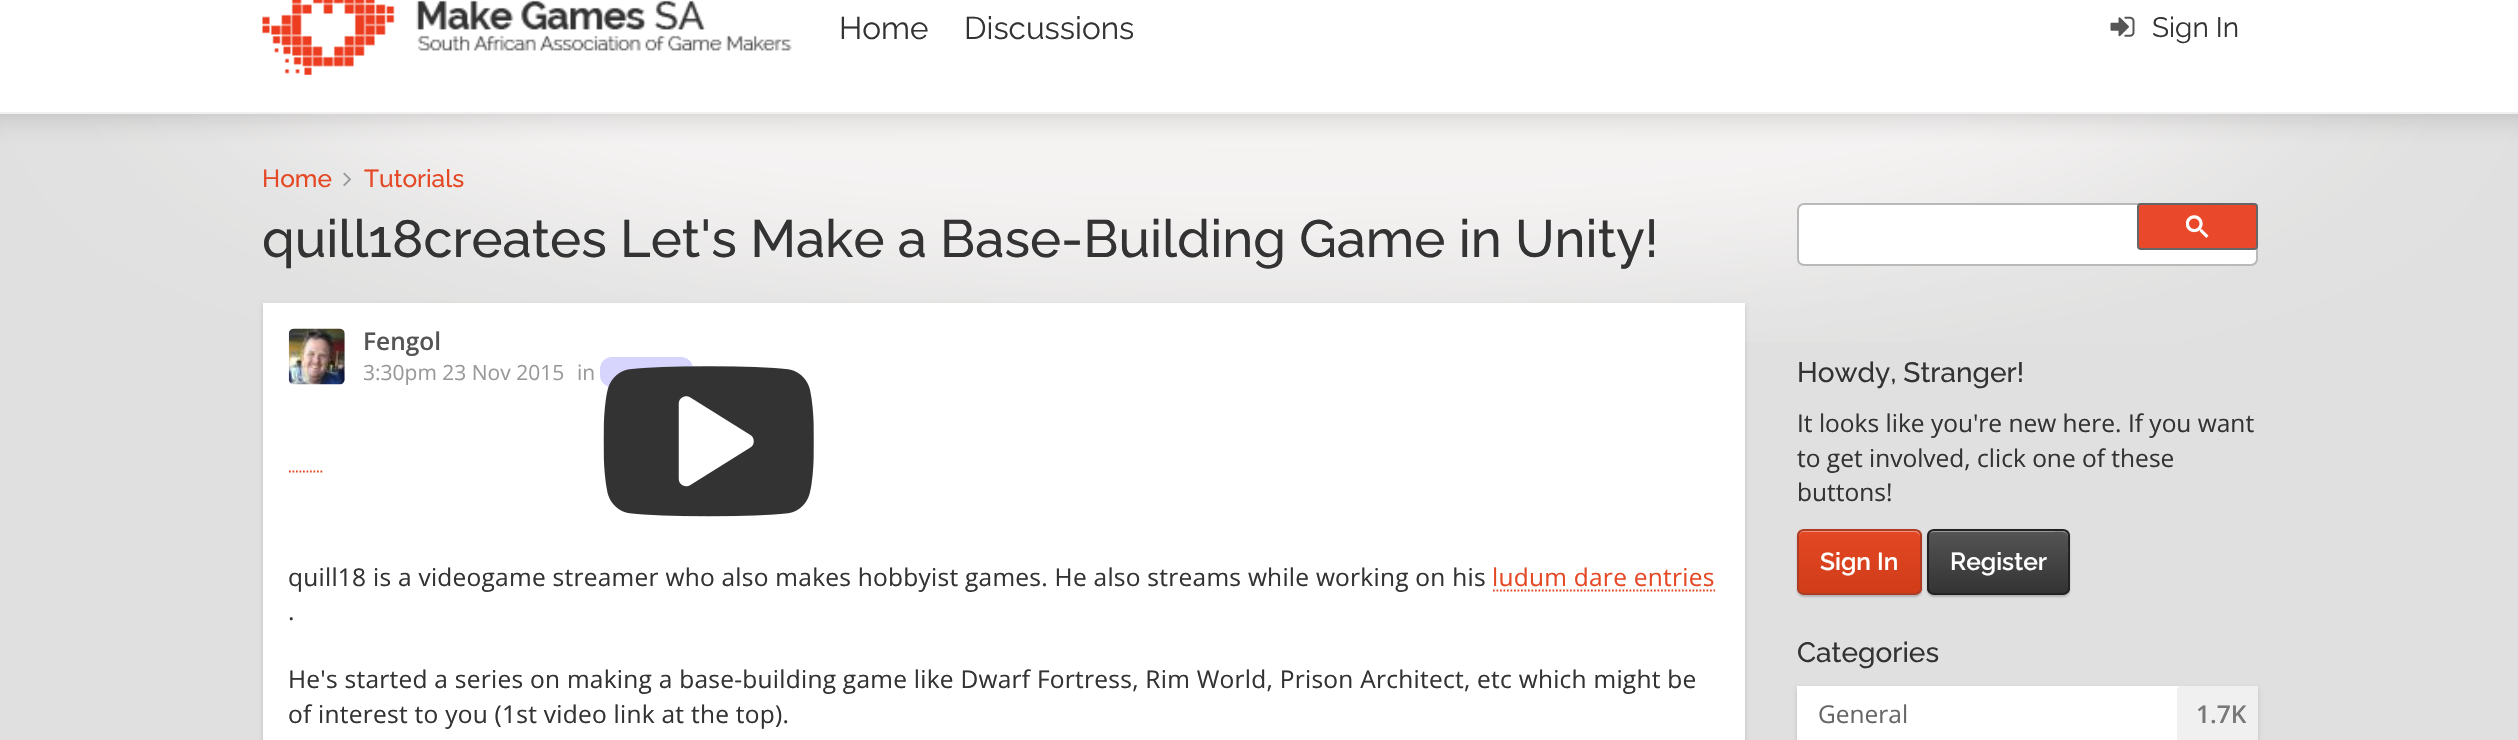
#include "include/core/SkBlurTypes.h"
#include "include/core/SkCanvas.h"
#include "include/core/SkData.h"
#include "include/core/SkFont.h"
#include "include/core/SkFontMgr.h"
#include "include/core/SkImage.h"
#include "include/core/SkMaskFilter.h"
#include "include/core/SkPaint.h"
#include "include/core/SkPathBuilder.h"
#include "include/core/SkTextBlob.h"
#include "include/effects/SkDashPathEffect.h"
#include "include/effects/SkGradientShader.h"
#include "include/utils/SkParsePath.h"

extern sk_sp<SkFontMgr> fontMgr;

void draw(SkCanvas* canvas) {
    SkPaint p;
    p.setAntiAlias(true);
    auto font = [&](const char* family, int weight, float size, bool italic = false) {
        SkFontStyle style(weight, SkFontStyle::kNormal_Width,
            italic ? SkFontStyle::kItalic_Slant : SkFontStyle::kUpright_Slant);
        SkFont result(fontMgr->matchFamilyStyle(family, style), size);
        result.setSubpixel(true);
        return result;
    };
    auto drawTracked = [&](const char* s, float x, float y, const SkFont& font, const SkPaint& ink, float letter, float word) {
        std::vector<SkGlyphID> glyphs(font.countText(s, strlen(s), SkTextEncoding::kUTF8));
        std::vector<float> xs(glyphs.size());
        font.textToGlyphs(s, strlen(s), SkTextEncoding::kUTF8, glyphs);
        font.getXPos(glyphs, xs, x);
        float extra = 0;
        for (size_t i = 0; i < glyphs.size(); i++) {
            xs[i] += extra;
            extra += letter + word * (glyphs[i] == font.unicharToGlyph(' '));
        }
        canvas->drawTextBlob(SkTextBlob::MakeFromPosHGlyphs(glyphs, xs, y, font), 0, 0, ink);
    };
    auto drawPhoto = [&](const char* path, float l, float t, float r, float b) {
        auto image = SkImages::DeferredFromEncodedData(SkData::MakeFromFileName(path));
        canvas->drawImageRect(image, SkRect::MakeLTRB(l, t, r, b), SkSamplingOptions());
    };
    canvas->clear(0xFFE0E0E0);
    p.setColor(0xFFFFFFFF);
    canvas->drawRect(SkRect::MakeLTRB(0, 0, 2518, 112), p);
    p.setColor(0xFFF0F0F0);
    canvas->drawRect(SkRect::MakeLTRB(0, 112, 2518, 114), p);
    drawPhoto("media/1.png", 262, 0, 792, 75);
    auto font1 = font("Raleway", 400, 31.5f);
    p.setColor(0xFF333333);
    canvas->drawString("Home", 839, 39, font1, p);
    canvas->drawString("Discussions", 964, 39, font1, p);
    drawPhoto("media/2.png", 2110, 16, 2135, 37);
    auto font2 = font("Raleway", 400, 28);
    canvas->drawString("Sign In", 2152, 37, font2, p);
    drawPhoto("media/3.png", 0, 114, 2518, 342);
    auto font3 = font("Raleway", 500, 24.5f);
    p.setColor(0xFFE44824);
    canvas->drawString("Home", 262, 187, font3, p);
    drawPhoto("media/4.png", 343, 172, 351, 187);
    canvas->drawString("Tutorials", 364, 187, font3, p);
    auto font4 = font("Raleway", 500, 52.5f);
    p.setColor(0xFF333333);
    canvas->drawString("quill18creates Let's Make a Base-Building Game in Unity!", 262, 257, font4, p);
    p.setColor(0x26000000);
    p.setMaskFilter(SkMaskFilter::MakeBlur(kNormal_SkBlurStyle, 2));
    canvas->drawRect(SkRect::MakeLTRB(263, 305, 1745, 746), p);
    p.setMaskFilter(nullptr);
    p.setColor(0xFFFFFFFF);
    canvas->drawRect(SkRect::MakeLTRB(263, 303, 1745, 740), p);
    drawPhoto("media/5.png", 288, 328, 345, 385);
    auto font5 = font("Open Sans", 600, 24.5f);
    p.setColor(0xFF555555);
    canvas->drawString("Fengol", 363, 350, font5, p);
    auto font6 = font("Open Sans", 400, 21);
    p.setColor(0xFF999999);
    canvas->drawString("3:30pm 23 Nov 2015", 363, 380, font6, p);
    canvas->drawString("in", 577, 380, font6, p);
    p.setColor(0xFFD7D4FD);
    canvas->drawRoundRect(SkRect::MakeLTRB(600, 357, 693, 387), 12, 12, p);
    p.setStyle(SkPaint::kStroke_Style);
    p.setStrokeWidth(1.8f);
    p.setColor(0xFFE44824);
    p.setPathEffect(SkDashPathEffect::Make({{1.75f, 1.75f}}, 0));
    canvas->drawPath(SkPathBuilder().moveTo(289, 471.5f).lineTo(324, 471.5f).detach(), p);
    p.setPathEffect(nullptr);
    drawPhoto("media/6.png", 603, 366, 814, 517);
    auto font7 = font("Open Sans", 400, 24.5f);
    p.setStyle(SkPaint::kFill_Style);
    p.setColor(0xFF333333);
    drawTracked("quill18 is a videogame streamer who also makes hobbyist games. He also streams while working on his", 288, 586, font7, p, 0.25f, 0);
    p.setStyle(SkPaint::kStroke_Style);
    p.setColor(0xFFE44824);
    p.setPathEffect(SkDashPathEffect::Make({{1.75f, 1.75f}}, 0));
    canvas->drawPath(SkPathBuilder().moveTo(1493, 590.5f).lineTo(1715, 590.5f).detach(), p);
    p.setPathEffect(nullptr);
    p.setStyle(SkPaint::kFill_Style);
    drawTracked("ludum dare entries", 1492, 586, font7, p, 0.25f, 0);
    p.setColor(0xFF333333);
    {
        const struct { const char* s; float x, y; } items[] = {
            {".", 288, 620},
            {"He's started a series on making a base-building game like Dwarf Fortress, Rim World, Prison Architect, etc which might be", 288, 688},
            {"of interest to you (1st video link at the top).", 288, 723},
        };
        for (auto [s, x, y] : items) {
            drawTracked(s, x, y, font7, p, 0.25f, 0);
        }
    }
    p.setColor(0xFFFFFFFF);
    canvas->drawRoundRect(SkRect::MakeLTRB(1798, 204, 2257, 265), 6, 6, p);
    p.setStyle(SkPaint::kStroke_Style);
    p.setStrokeWidth(2);
    p.setColor(0xFFBAB9B9);
    canvas->drawRoundRect(SkRect::MakeLTRB(1798, 204, 2257, 265), 6, 6, p);
    p.setStyle(SkPaint::kFill_Style);
    p.setColor(0xFFEA482B);
    canvas->drawRoundRect(SkRect::MakeLTRB(2138, 204, 2257, 249), 3, 3, p);
    p.setStyle(SkPaint::kStroke_Style);
    p.setColor(0xFF666666);
    canvas->drawRoundRect(SkRect::MakeLTRB(2138, 204, 2257, 249), 3, 3, p);
    drawPhoto("media/7.png", 2186, 215, 2209, 238);
    auto font8 = font("Raleway", 500, 28);
    p.setStyle(SkPaint::kFill_Style);
    p.setColor(0xFF333333);
    canvas->drawString("Howdy, Stranger!", 1797, 382, font8, p);
    {
        const struct { const char* s; float x, y; } items[] = {
            {"It looks like you're new here. If you want", 1797, 432},
            {"to get involved, click one of these", 1797, 467},
            {"buttons!", 1797, 501},
        };
        for (auto [s, x, y] : items) {
            canvas->drawString(s, x, y, font7, p);
        }
    }
    p.setColor(0x33000000);
    p.setMaskFilter(SkMaskFilter::MakeBlur(kNormal_SkBlurStyle, 1));
    canvas->drawRoundRect(SkRect::MakeLTRB(1797, 530, 1922, 597), 7, 7, p);
    p.setMaskFilter(nullptr);
    canvas->save();
    canvas->clipPath(SkPathBuilder().moveTo(1804, 529).lineTo(1915, 529).cubicTo(1919, 529, 1922, 532, 1922, 536).lineTo(1922, 588).cubicTo(1922, 592, 1919, 595, 1915, 595).lineTo(1804, 595).cubicTo(1800, 595, 1797, 592, 1797, 588).lineTo(1797, 536).cubicTo(1797, 532, 1800, 529, 1804, 529).close().detach(), true);
    {
        const SkColor colors[] = {0xFFE44824, 0xFFD13C19};
        const float stops[] = {0, 1};
        const SkPoint ends[] = {{1859, 530}, {1859, 593}};
        p.setShader(SkGradientShader::MakeLinear(ends, colors, stops, 2, SkTileMode::kClamp));
        p.setAlpha(255);
    }
    canvas->drawRect(SkRect::MakeLTRB(1797, 530, 1922, 593), p);
    canvas->restore();
    p.setShader(nullptr);
    p.setColor(0xFFEF917C);
    canvas->drawPath(SkPathBuilder().moveTo(1804, 532).lineTo(1914, 532).cubicTo(1917, 532, 1920, 534, 1920, 537).lineTo(1920, 535).cubicTo(1920, 532, 1918, 530, 1915, 530).lineTo(1804, 530).cubicTo(1801, 530, 1799, 532, 1799, 535).lineTo(1799, 537).cubicTo(1799, 534, 1801, 532, 1804, 532).close().detach(), p);
    p.setStyle(SkPaint::kStroke_Style);
    p.setColor(0xFFAC3D22);
    canvas->drawRoundRect(SkRect::MakeLTRB(1798, 530, 1921, 594), 6, 6, p);
    auto font9 = font("Raleway", 600, 24.5f);
    p.setStyle(SkPaint::kFill_Style);
    p.setColor(0xFFFFFFFF);
    canvas->drawString("Sign In", 1820, 570, font9, p);
    p.setColor(0x33000000);
    p.setMaskFilter(SkMaskFilter::MakeBlur(kNormal_SkBlurStyle, 1));
    canvas->drawRoundRect(SkRect::MakeLTRB(1927, 530, 2070, 597), 7, 7, p);
    p.setMaskFilter(nullptr);
    canvas->save();
    canvas->clipPath(SkPathBuilder().moveTo(1934, 529).lineTo(2063, 529).cubicTo(2067, 529, 2070, 532, 2070, 536).lineTo(2070, 588).cubicTo(2070, 592, 2067, 595, 2063, 595).lineTo(1934, 595).cubicTo(1930, 595, 1927, 592, 1927, 588).lineTo(1927, 536).cubicTo(1927, 532, 1930, 529, 1934, 529).close().detach(), true);
    {
        const SkColor colors[] = {0xFF555555, 0xFF333333};
        const float stops[] = {0, 1};
        const SkPoint ends[] = {{1999, 530}, {1999, 593}};
        p.setShader(SkGradientShader::MakeLinear(ends, colors, stops, 2, SkTileMode::kClamp));
        p.setAlpha(255);
    }
    canvas->drawRect(SkRect::MakeLTRB(1927, 530, 2070, 593), p);
    canvas->restore();
    p.setShader(nullptr);
    p.setColor(0x66FFFFFF);
    canvas->drawPath(SkPathBuilder().moveTo(1934, 532).lineTo(2042, 532).cubicTo(2072, 532, 2068, 527, 2068, 555).lineTo(2068, 591).cubicTo(2069, 590, 2069, 589, 2069, 588).lineTo(2069, 535).cubicTo(2069, 532, 2067, 530, 2064, 530).lineTo(1934, 530).cubicTo(1932, 530, 1929, 532, 1929, 534).cubicTo(1930, 533, 1932, 532, 1934, 532).close().detach(), p);
    p.setStyle(SkPaint::kStroke_Style);
    p.setColor(0xFF222222);
    canvas->drawRoundRect(SkRect::MakeLTRB(1928, 530, 2069, 594), 6, 6, p);
    p.setStyle(SkPaint::kFill_Style);
    p.setColor(0xFFFFFFFF);
    canvas->drawString("Register", 1950, 570, font9, p);
    p.setColor(0xFF333333);
    canvas->drawString("Categories", 1797, 662, font8, p);
    p.setColor(0x26000000);
    p.setMaskFilter(SkMaskFilter::MakeBlur(kNormal_SkBlurStyle, 2));
    canvas->drawRect(SkRect::MakeLTRB(1797, 688, 2258, 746), p);
    p.setMaskFilter(nullptr);
    p.setColor(0xFFFFFFFF);
    canvas->drawRect(SkRect::MakeLTRB(1797, 686, 2181, 740), p);
    p.setColor(0xFF666666);
    canvas->drawString("General", 1818, 723, font7, p);
    p.setColor(0xFFF0F0F0);
    canvas->drawPath(SkPathBuilder().moveTo(2181, 686).lineTo(2258, 686).lineTo(2258, 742).lineTo(2181, 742).cubicTo(2179, 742, 2177, 740, 2177, 738).lineTo(2177, 690).cubicTo(2177, 688, 2179, 686, 2181, 686).close().detach(), p);
    p.setColor(0xFF787878);
    canvas->drawString("1.7K", 2196, 723, font5, p);
}
